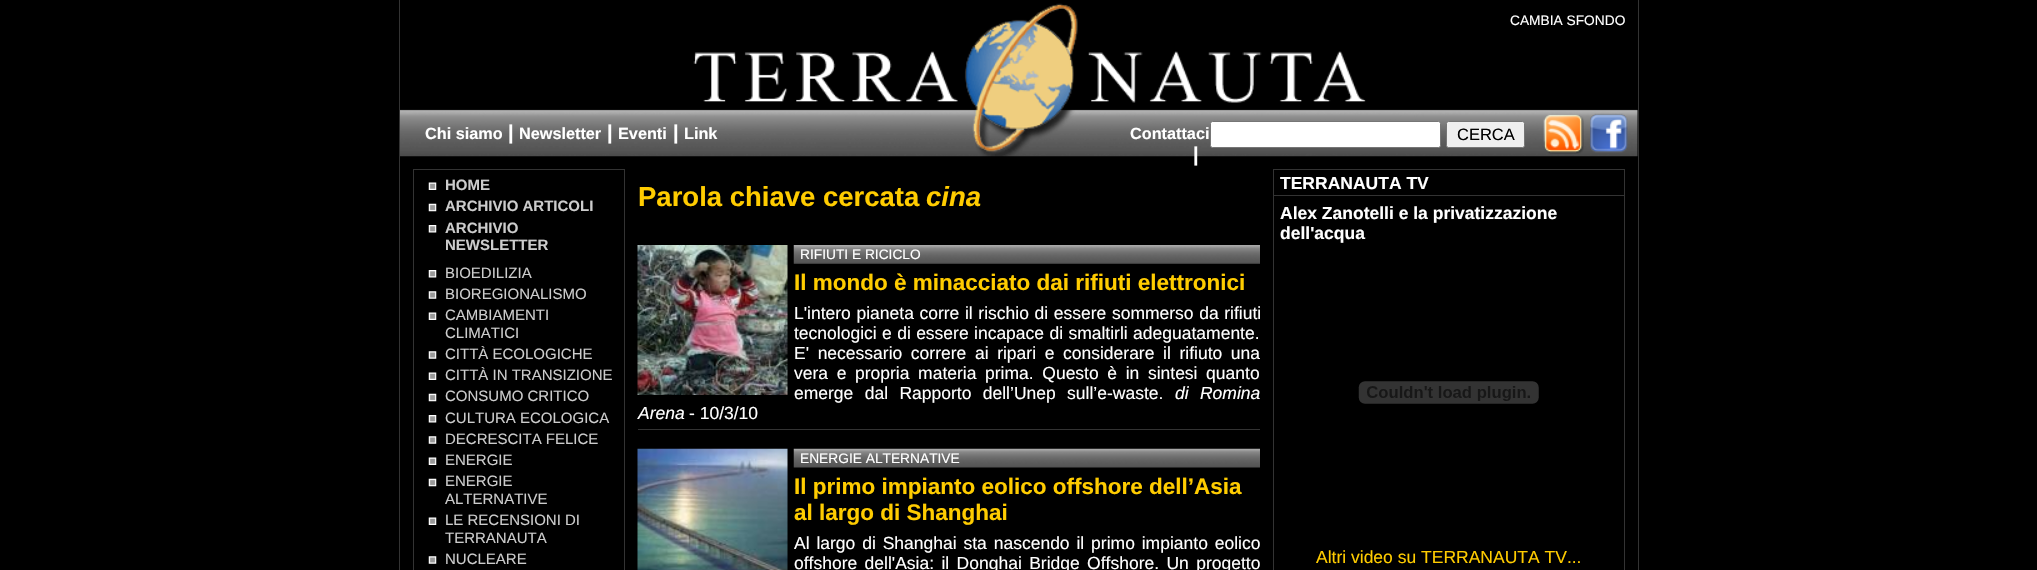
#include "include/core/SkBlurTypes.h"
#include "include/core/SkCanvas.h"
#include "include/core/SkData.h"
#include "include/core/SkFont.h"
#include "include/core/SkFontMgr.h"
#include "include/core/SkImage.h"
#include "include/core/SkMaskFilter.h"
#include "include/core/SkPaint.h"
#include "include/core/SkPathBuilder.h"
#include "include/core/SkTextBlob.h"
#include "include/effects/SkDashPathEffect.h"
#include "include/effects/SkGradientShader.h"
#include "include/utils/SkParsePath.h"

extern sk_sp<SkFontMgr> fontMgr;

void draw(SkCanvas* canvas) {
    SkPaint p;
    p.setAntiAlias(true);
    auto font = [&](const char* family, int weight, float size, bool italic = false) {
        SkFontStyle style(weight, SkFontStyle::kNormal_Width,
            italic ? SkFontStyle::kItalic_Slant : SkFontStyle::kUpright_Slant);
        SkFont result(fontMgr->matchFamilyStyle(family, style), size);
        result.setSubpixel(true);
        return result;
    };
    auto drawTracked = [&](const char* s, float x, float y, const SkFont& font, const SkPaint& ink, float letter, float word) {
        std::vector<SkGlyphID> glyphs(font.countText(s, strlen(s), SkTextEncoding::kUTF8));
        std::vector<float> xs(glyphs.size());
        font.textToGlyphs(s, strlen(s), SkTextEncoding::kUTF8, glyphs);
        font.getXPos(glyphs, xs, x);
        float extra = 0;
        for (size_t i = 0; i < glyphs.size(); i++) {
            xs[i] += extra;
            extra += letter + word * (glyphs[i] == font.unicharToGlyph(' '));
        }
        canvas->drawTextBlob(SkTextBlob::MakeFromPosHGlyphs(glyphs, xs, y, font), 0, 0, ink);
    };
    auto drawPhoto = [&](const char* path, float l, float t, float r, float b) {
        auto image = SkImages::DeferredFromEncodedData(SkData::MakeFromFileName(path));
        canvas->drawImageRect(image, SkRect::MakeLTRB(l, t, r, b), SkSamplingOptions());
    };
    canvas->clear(0xFF000000);
    p.setColor(0xFF333333);
    canvas->drawRect(SkRect::MakeLTRB(1638, 0, 1639, 570), p);
    canvas->drawRect(SkRect::MakeLTRB(399, 0, 400, 570), p);
    drawPhoto("media/1.png", 400, 3, 1638, 157);
    auto font1 = font("Liberation Sans", 400, 13.75f);
    p.setColor(0xFFFFFFFF);
    canvas->drawString("CAMBIA SFONDO", 1510, 25, font1, p);
    auto font2 = font("Liberation Sans", 700, 16.25f);
    canvas->drawString("Chi siamo", 425, 139, font2, p);
    auto font3 = font("Liberation Sans", 700, 20);
    canvas->drawString("|", 508, 139, font3, p);
    canvas->drawString("Newsletter", 519, 139, font2, p);
    canvas->drawString("|", 607, 139, font3, p);
    canvas->drawString("Eventi", 618, 139, font2, p);
    canvas->drawString("|", 673, 139, font3, p);
    canvas->drawString("Link", 684, 139, font2, p);
    canvas->drawString("Contattaci", 1130, 139, font2, p);
    canvas->drawRoundRect(SkRect::MakeLTRB(1210.5f, 121.5f, 1440.5f, 147.5f), 2, 2, p);
    p.setStyle(SkPaint::kStroke_Style);
    p.setStrokeWidth(1);
    p.setColor(0xFF767676);
    canvas->drawRoundRect(SkRect::MakeLTRB(1210.5f, 121.5f, 1440.5f, 147.5f), 2, 2, p);
    p.setStyle(SkPaint::kFill_Style);
    p.setColor(0xFFEFEFEF);
    canvas->drawRoundRect(SkRect::MakeLTRB(1446.5f, 121.5f, 1524.5f, 147.5f), 2, 2, p);
    p.setStyle(SkPaint::kStroke_Style);
    p.setColor(0xFF767676);
    canvas->drawRoundRect(SkRect::MakeLTRB(1446.5f, 121.5f, 1524.5f, 147.5f), 2, 2, p);
    auto font4 = font("Liberation Sans", 400, 16.5f);
    p.setStyle(SkPaint::kFill_Style);
    p.setColor(0xFF000000);
    canvas->drawString("CERCA", 1457, 140, font4, p);
    p.setColor(0xFFFFFFFF);
    canvas->drawString("|", 1193, 161, font3, p);
    drawPhoto("media/2.png", 1543, 114, 1584, 154);
    drawPhoto("media/3.png", 1590, 113, 1628, 153);
    p.setStyle(SkPaint::kStroke_Style);
    p.setColor(0xFF333333);
    canvas->drawRect(SkRect::MakeLTRB(413.5f, 169.5f, 624.5f, 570.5f), p);
    drawPhoto("media/4.png", 428, 182, 437, 190);
    auto font5 = font("Liberation Sans", 700, 15);
    p.setStyle(SkPaint::kFill_Style);
    p.setColor(0xFFCCCCCC);
    canvas->drawString("HOME", 445, 190, font5, p);
    drawPhoto("media/5.png", 428, 203, 437, 212);
    canvas->drawString("ARCHIVIO ARTICOLI", 445, 211, font5, p);
    drawPhoto("media/6.png", 428, 225, 437, 233);
    canvas->drawString("ARCHIVIO", 445, 233, font5, p);
    canvas->drawString("NEWSLETTER", 445, 250, font5, p);
    drawPhoto("media/6.png", 428, 270, 437, 278);
    auto font6 = font("Liberation Sans", 400, 15);
    canvas->drawString("BIOEDILIZIA", 445, 278, font6, p);
    drawPhoto("media/7.png", 428, 291, 437, 299);
    canvas->drawString("BIOREGIONALISMO", 445, 299, font6, p);
    drawPhoto("media/4.png", 428, 312, 437, 320);
    canvas->drawString("CAMBIAMENTI", 445, 320, font6, p);
    canvas->drawString("CLIMATICI", 445, 338, font6, p);
    drawPhoto("media/8.png", 428, 351, 437, 359);
    canvas->drawString("CITTÀ ECOLOGICHE", 445, 359, font6, p);
    drawPhoto("media/4.png", 428, 372, 437, 380);
    canvas->drawString("CITTÀ IN TRANSIZIONE", 445, 380, font6, p);
    drawPhoto("media/5.png", 428, 393, 437, 402);
    canvas->drawString("CONSUMO CRITICO", 445, 401, font6, p);
    drawPhoto("media/6.png", 428, 415, 437, 423);
    canvas->drawString("CULTURA ECOLOGICA", 445, 423, font6, p);
    drawPhoto("media/8.png", 428, 436, 437, 444);
    canvas->drawString("DECRESCITA FELICE", 445, 444, font6, p);
    drawPhoto("media/4.png", 428, 457, 437, 465);
    canvas->drawString("ENERGIE", 445, 465, font6, p);
    drawPhoto("media/5.png", 428, 478, 437, 487);
    canvas->drawString("ENERGIE", 445, 486, font6, p);
    canvas->drawString("ALTERNATIVE", 445, 504, font6, p);
    drawPhoto("media/4.png", 428, 517, 437, 525);
    canvas->drawString("LE RECENSIONI DI", 445, 525, font6, p);
    canvas->drawString("TERRANAUTA", 445, 543, font6, p);
    drawPhoto("media/8.png", 428, 556, 437, 564);
    canvas->drawString("NUCLEARE", 445, 564, font6, p);
    auto font7 = font("Liberation Sans", 700, 27.5f);
    p.setColor(0xFFFFCC00);
    canvas->drawString("Parola chiave cercata", 638, 206, font7, p);
    auto font8 = font("Liberation Sans", 700, 27.5f, true);
    canvas->drawString("cina", 926, 206, font8, p);
    p.setColor(0xFF333333);
    canvas->drawRect(SkRect::MakeLTRB(638, 429, 1260, 430), p);
    drawPhoto("media/9.png", 637, 245, 788, 395);
    drawPhoto("media/10.png", 793, 245, 1260, 264);
    p.setColor(0xFFFFFFFF);
    canvas->drawString("RIFIUTI E RICICLO", 800, 259, font1, p);
    auto font9 = font("Liberation Sans", 700, 22.5f);
    p.setColor(0xFFFFCC00);
    canvas->drawString("Il mondo è minacciato dai rifiuti elettronici", 794, 290, font9, p);
    auto font10 = font("Liberation Sans", 400, 17.5f);
    p.setColor(0xFFFFFFFF);
    drawTracked("L'intero pianeta corre il rischio di essere sommerso da rifiuti", 794, 319, font10, p, 0, 0.75f);
    drawTracked("tecnologici e di essere incapace di smaltirli adeguatamente.", 794, 339, font10, p, 0, 0.5f);
    drawTracked("E' necessario correre ai ripari e considerare il rifiuto una", 794, 359, font10, p, 0, 3.75f);
    drawTracked("vera e propria materia prima. Questo è in sintesi quanto", 794, 379, font10, p, 0, 3.75f);
    drawTracked("emerge dal Rapporto dell’Unep sull’e-waste.", 794, 399, font10, p, 0, 6.5f);
    auto font11 = font("Liberation Sans", 400, 17.5f, true);
    drawTracked("di Romina", 1175, 399, font11, p, 0, 6.5f);
    canvas->drawString("Arena", 638, 419, font11, p);
    canvas->drawString("- 10/3/10", 689, 419, font10, p);
    drawPhoto("media/11.png", 637, 448, 788, 570);
    drawPhoto("media/12.png", 793, 448, 1260, 468);
    canvas->drawString("ENERGIE ALTERNATIVE", 800, 463, font1, p);
    p.setColor(0xFFFFCC00);
    canvas->drawString("Il primo impianto eolico offshore dell’Asia", 794, 494, font9, p);
    canvas->drawString("al largo di Shanghai", 794, 520, font9, p);
    p.setColor(0xFFFFFFFF);
    drawTracked("Al largo di Shanghai sta nascendo il primo impianto eolico", 794, 549, font10, p, 0, 2);
    drawTracked("offshore dell'Asia: il Donghai Bridge Offshore. Un progetto", 794, 569, font10, p, 0, 2.5f);
    {
        const struct { float l, t, r, b; SkColor color; } items[] = {
            {1273, 169, 1625, 170, 0xFF333333},
            {1624, 169, 1625, 195, 0xFF333333},
            {1273, 169, 1274, 195, 0xFF333333},
        };
        for (auto [l, t, r, b, color] : items) {
            p.setColor(color);
            canvas->drawRect(SkRect::MakeLTRB(l, t, r, b), p);
        }
    }
    auto font12 = font("Liberation Sans", 700, 17.5f);
    p.setColor(0xFFFFFFFF);
    canvas->drawString("TERRANAUTA TV", 1280, 189, font12, p);
    p.setStyle(SkPaint::kStroke_Style);
    p.setColor(0xFF333333);
    canvas->drawRect(SkRect::MakeLTRB(1273.5f, 195.5f, 1624.5f, 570.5f), p);
    p.setStyle(SkPaint::kFill_Style);
    p.setColor(0xFFFFFFFF);
    canvas->drawString("Alex Zanotelli e la privatizzazione", 1280, 219, font12, p);
    canvas->drawString("dell'acqua", 1280, 239, font12, p);
    drawPhoto("media/13.png", 1358, 381, 1539, 404);
    p.setColor(0xFFFFCC00);
    canvas->drawString("Altri video su TERRANAUTA TV...", 1316, 563, font10, p);
}
